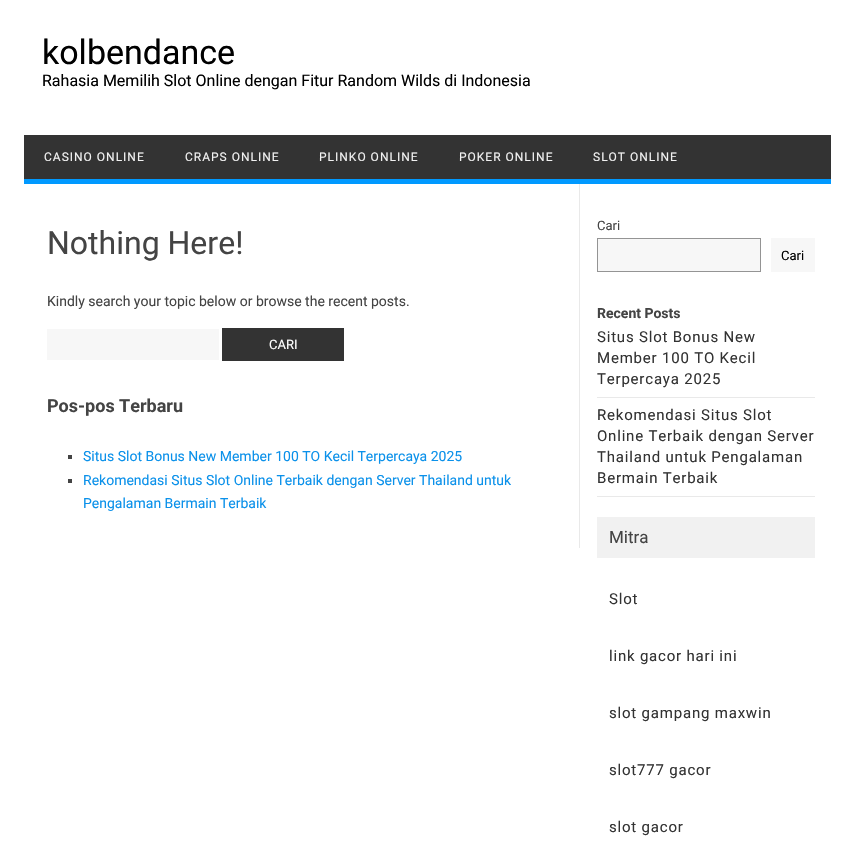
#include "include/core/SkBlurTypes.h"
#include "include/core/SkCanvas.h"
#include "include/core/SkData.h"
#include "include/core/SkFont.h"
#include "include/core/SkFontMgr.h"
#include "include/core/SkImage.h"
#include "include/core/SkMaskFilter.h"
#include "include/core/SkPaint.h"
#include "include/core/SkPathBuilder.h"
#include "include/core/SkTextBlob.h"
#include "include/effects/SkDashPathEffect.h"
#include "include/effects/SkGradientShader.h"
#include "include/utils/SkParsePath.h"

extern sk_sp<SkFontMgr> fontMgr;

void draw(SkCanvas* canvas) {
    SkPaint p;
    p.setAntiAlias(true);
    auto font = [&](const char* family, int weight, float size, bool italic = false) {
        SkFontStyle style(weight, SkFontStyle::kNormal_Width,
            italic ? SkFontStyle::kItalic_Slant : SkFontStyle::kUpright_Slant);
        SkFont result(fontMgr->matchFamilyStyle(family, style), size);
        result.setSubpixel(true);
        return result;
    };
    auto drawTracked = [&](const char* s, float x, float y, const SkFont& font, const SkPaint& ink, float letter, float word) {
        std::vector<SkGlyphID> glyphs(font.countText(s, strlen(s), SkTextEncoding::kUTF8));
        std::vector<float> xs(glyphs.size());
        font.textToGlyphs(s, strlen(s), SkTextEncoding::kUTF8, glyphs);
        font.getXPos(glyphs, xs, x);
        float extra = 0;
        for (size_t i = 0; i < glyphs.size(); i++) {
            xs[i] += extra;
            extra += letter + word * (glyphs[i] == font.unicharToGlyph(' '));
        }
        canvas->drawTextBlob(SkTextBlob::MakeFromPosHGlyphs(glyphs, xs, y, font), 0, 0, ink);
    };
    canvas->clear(0xFFFFFFFF);
    auto font1 = font("Roboto", 400, 34);
    p.setColor(0xFF000000);
    canvas->drawString("kolbendance", 42, 64, font1, p);
    auto font2 = font("Roboto", 400, 16);
    canvas->drawString("Rahasia Memilih Slot Online dengan Fitur Random Wilds di Indonesia", 42, 86, font2, p);
    p.setColor(0xFF333333);
    canvas->drawRect(SkRect::MakeLTRB(24, 135, 831, 179), p);
    p.setColor(0xFF0099FF);
    canvas->drawRect(SkRect::MakeLTRB(24, 179, 831, 184), p);
    auto font3 = font("Roboto", 400, 12);
    p.setColor(0xFFF1F1F1);
    {
        const struct { const char* s; float x, y; } items[] = {
            {"CASINO ONLINE", 44, 161},
            {"CRAPS ONLINE", 185, 161},
            {"PLINKO ONLINE", 319, 161},
            {"POKER ONLINE", 459, 161},
            {"SLOT ONLINE", 593, 161},
        };
        for (auto [s, x, y] : items) {
            drawTracked(s, x, y, font3, p, 1, 0);
        }
    }
    p.setColor(0xFFE9E9E9);
    canvas->drawRect(SkRect::MakeLTRB(579, 184, 580, 548), p);
    auto font4 = font("Roboto", 400, 32);
    p.setColor(0xFF444444);
    canvas->drawString("Nothing Here!", 47, 254, font4, p);
    auto font5 = font("Roboto", 400, 14);
    canvas->drawString("Kindly search your topic below or browse the recent posts.", 47, 306, font5, p);
    p.setColor(0xFFF7F7F7);
    canvas->drawRect(SkRect::MakeLTRB(47, 329, 219, 360), p);
    p.setColor(0xFF333333);
    canvas->drawRect(SkRect::MakeLTRB(222, 328, 344, 361), p);
    auto font6 = font("Roboto", 400, 13);
    p.setColor(0xFFFFFFFF);
    canvas->drawString("CARI", 269, 349, font6, p);
    auto font7 = font("Roboto", 700, 18);
    p.setColor(0xFF444444);
    canvas->drawString("Pos-pos Terbaru", 47, 412, font7, p);
    canvas->drawRect(SkRect::MakeLTRB(68, 455, 72, 459), p);
    p.setColor(0xFF0B91EA);
    canvas->drawString("Situs Slot Bonus New Member 100 TO Kecil Terpercaya 2025", 83, 461, font5, p);
    p.setColor(0xFF444444);
    canvas->drawRect(SkRect::MakeLTRB(68, 479, 72, 483), p);
    p.setColor(0xFF0B91EA);
    canvas->drawString("Rekomendasi Situs Slot Online Terbaik dengan Server Thailand untuk", 83, 485, font5, p);
    canvas->drawString("Pengalaman Bermain Terbaik", 83, 508, font5, p);
    p.setColor(0xFF444444);
    canvas->drawString("Cari", 597, 230, font6, p);
    p.setColor(0xFFF7F7F7);
    canvas->drawRect(SkRect::MakeLTRB(597.5f, 238.5f, 760.5f, 271.5f), p);
    p.setStyle(SkPaint::kStroke_Style);
    p.setStrokeWidth(1);
    p.setColor(0xFF949494);
    canvas->drawRect(SkRect::MakeLTRB(597.5f, 238.5f, 760.5f, 271.5f), p);
    p.setStyle(SkPaint::kFill_Style);
    p.setColor(0xFFF7F7F7);
    canvas->drawRect(SkRect::MakeLTRB(771, 238, 815, 272), p);
    p.setColor(0xFF000000);
    canvas->drawString("Cari", 781, 260, font6, p);
    auto font8 = font("Roboto", 700, 14);
    p.setColor(0xFF444444);
    canvas->drawString("Recent Posts", 597, 318, font8, p);
    p.setColor(0xFFE9E9E9);
    canvas->drawRect(SkRect::MakeLTRB(597, 397, 815, 398), p);
    auto font9 = font("Roboto", 400, 15);
    p.setColor(0xFF333333);
    {
        const struct { const char* s; float x, y; } items[] = {
            {"Situs Slot Bonus New", 597, 342},
            {"Member 100 TO Kecil", 597, 363},
            {"Terpercaya 2025", 597, 384},
        };
        for (auto [s, x, y] : items) {
            drawTracked(s, x, y, font9, p, 0.8f, 0);
        }
    }
    p.setColor(0xFFE9E9E9);
    canvas->drawRect(SkRect::MakeLTRB(597, 496, 815, 497), p);
    p.setColor(0xFF333333);
    {
        const struct { const char* s; float x, y; } items[] = {
            {"Rekomendasi Situs Slot", 597, 420},
            {"Online Terbaik dengan Server", 597, 441},
            {"Thailand untuk Pengalaman", 597, 462},
            {"Bermain Terbaik", 597, 483},
        };
        for (auto [s, x, y] : items) {
            drawTracked(s, x, y, font9, p, 0.8f, 0);
        }
    }
    p.setColor(0xFFF1F1F1);
    canvas->drawRect(SkRect::MakeLTRB(597, 517, 815, 558), p);
    auto font10 = font("Roboto", 400, 17);
    p.setColor(0xFF444444);
    canvas->drawString("Mitra", 609, 543, font10, p);
    p.setColor(0xFF333333);
    {
        const struct { const char* s; float x, y; } items[] = {
            {"Slot", 609, 604},
            {"link gacor hari ini", 609, 661},
            {"slot gampang maxwin", 609, 718},
            {"slot777 gacor", 609, 775},
            {"slot gacor", 609, 832},
        };
        for (auto [s, x, y] : items) {
            drawTracked(s, x, y, font9, p, 0.8f, 0);
        }
    }
}
